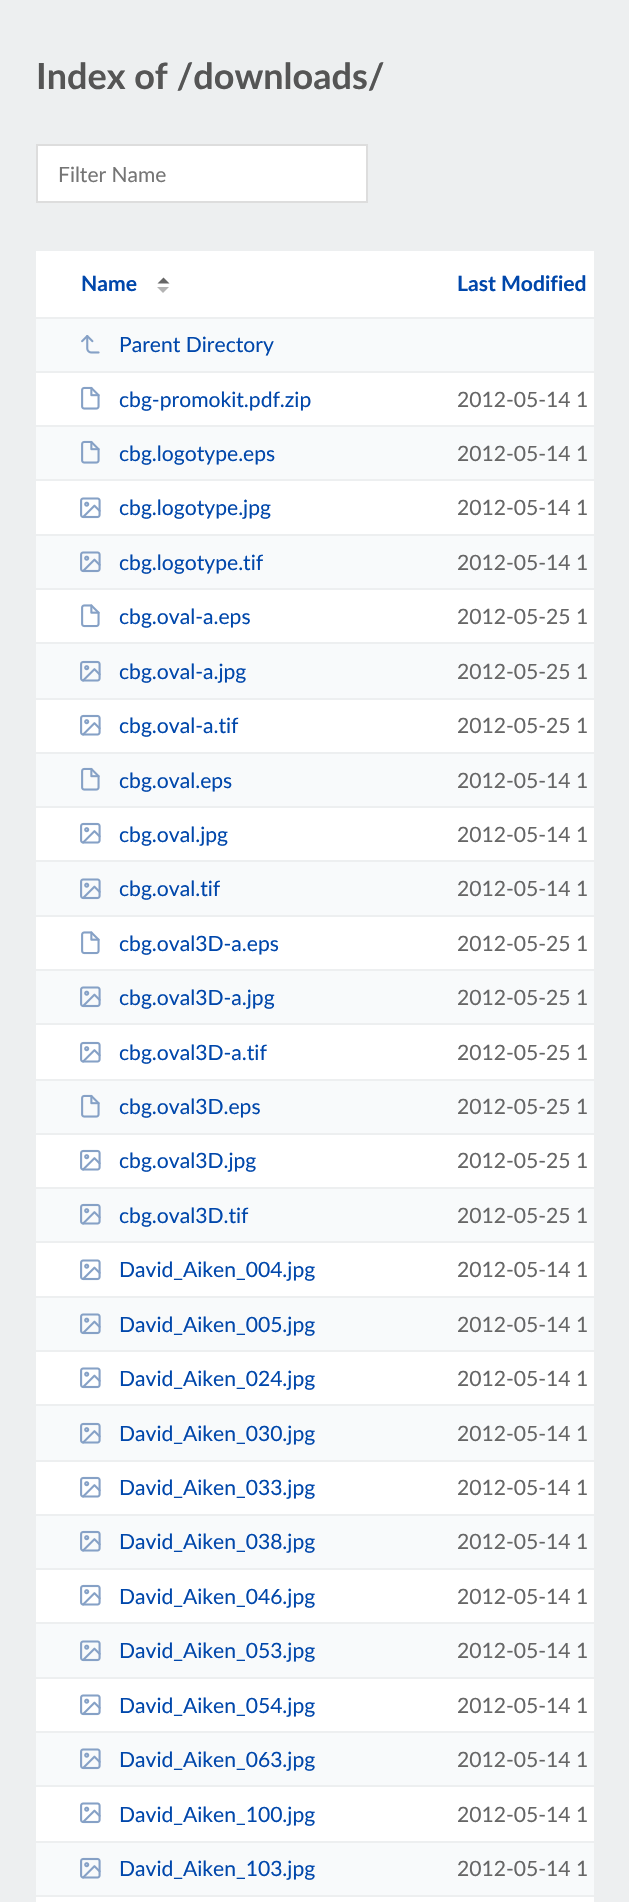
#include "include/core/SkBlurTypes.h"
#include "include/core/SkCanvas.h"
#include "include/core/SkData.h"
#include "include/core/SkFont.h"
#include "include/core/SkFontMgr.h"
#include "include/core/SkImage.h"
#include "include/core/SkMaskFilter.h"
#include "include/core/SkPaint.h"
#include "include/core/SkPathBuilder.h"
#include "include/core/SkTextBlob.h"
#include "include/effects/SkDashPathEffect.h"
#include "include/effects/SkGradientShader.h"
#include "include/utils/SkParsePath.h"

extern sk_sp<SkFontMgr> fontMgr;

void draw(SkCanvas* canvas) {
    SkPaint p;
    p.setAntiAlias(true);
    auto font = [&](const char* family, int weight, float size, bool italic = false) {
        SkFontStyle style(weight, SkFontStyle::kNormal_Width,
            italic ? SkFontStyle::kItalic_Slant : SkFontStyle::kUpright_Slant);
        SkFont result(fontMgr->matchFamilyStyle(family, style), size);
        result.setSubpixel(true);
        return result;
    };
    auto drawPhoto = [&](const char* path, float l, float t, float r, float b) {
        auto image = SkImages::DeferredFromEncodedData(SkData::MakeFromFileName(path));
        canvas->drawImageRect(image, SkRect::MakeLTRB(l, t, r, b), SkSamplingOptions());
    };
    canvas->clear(0xFFEDEFF0);
    auto font1 = font("Lato", 700, 36);
    p.setColor(0xFF555555);
    canvas->drawString("Index of /downloads/", 36, 89, font1, p);
    p.setColor(0xFFFFFFFF);
    canvas->drawRect(SkRect::MakeLTRB(37, 145, 367, 202), p);
    p.setStyle(SkPaint::kStroke_Style);
    p.setStrokeWidth(2);
    p.setColor(0xFFDDDDDD);
    canvas->drawRect(SkRect::MakeLTRB(37, 145, 367, 202), p);
    auto font2 = font("Lato", 400, 21);
    p.setStyle(SkPaint::kFill_Style);
    p.setColor(0xFF757575);
    canvas->drawString("Filter Name", 58, 182, font2, p);
    p.setColor(0xFFFFFFFF);
    canvas->drawRect(SkRect::MakeLTRB(36, 251, 594, 1902), p);
    auto font3 = font("Lato", 700, 21.1f);
    p.setColor(0xFF0047AB);
    canvas->drawString("Name", 81, 291, font3, p);
    p.setColor(0xFF666666);
    canvas->drawPath(SkPathBuilder().moveTo(169.5f, 283.5f).lineTo(157.5f, 283.5f).lineTo(163.5f, 277.5f).close().detach(), p);
    p.setColor(0xFFB3B3B3);
    canvas->drawPath(SkPathBuilder().moveTo(157, 287).lineTo(169, 287).lineTo(163, 293).close().detach(), p);
    p.setColor(0xFF0047AB);
    canvas->drawString("Last Modified", 457, 291, font3, p);
    {
        const struct { float l, t, r, b; SkColor color; } items[] = {
            {36, 319, 594, 371, 0xFFF8FAFB},
            {36, 317, 594, 319, 0xFFEDEFF0},
            {36, 371, 594, 373, 0xFFEDEFF0},
        };
        for (auto [l, t, r, b, color] : items) {
            p.setColor(color);
            canvas->drawRect(SkRect::MakeLTRB(l, t, r, b), p);
        }
    }
    drawPhoto("media/1.png", 81, 335, 100, 354);
    auto font4 = font("Lato", 400, 21.1f);
    p.setColor(0xFF0047AB);
    canvas->drawString("Parent Directory", 119, 352, font4, p);
    drawPhoto("media/2.png", 81, 386, 100, 410);
    canvas->drawString("cbg-promokit.pdf.zip", 119, 407, font4, p);
    p.setColor(0xFF666666);
    canvas->drawString("2012-05-14 1", 457, 407, font4, p);
    {
        const struct { float l, t, r, b; SkColor color; } items[] = {
            {36, 427, 594, 479, 0xFFF8FAFB},
            {36, 425, 594, 427, 0xFFEDEFF0},
            {36, 479, 594, 481, 0xFFEDEFF0},
        };
        for (auto [l, t, r, b, color] : items) {
            p.setColor(color);
            canvas->drawRect(SkRect::MakeLTRB(l, t, r, b), p);
        }
    }
    drawPhoto("media/3.png", 81, 440, 100, 464);
    p.setColor(0xFF0047AB);
    canvas->drawString("cbg.logotype.eps", 119, 461, font4, p);
    p.setColor(0xFF666666);
    canvas->drawString("2012-05-14 1", 457, 461, font4, p);
    drawPhoto("media/4.png", 80, 497, 101, 519);
    p.setColor(0xFF0047AB);
    canvas->drawString("cbg.logotype.jpg", 119, 515, font4, p);
    p.setColor(0xFF666666);
    canvas->drawString("2012-05-14 1", 457, 515, font4, p);
    {
        const struct { float l, t, r, b; SkColor color; } items[] = {
            {36, 536, 594, 588, 0xFFF8FAFB},
            {36, 534, 594, 536, 0xFFEDEFF0},
            {36, 588, 594, 590, 0xFFEDEFF0},
        };
        for (auto [l, t, r, b, color] : items) {
            p.setColor(color);
            canvas->drawRect(SkRect::MakeLTRB(l, t, r, b), p);
        }
    }
    drawPhoto("media/5.png", 80, 551, 101, 573);
    p.setColor(0xFF0047AB);
    canvas->drawString("cbg.logotype.tif", 119, 570, font4, p);
    p.setColor(0xFF666666);
    canvas->drawString("2012-05-14 1", 457, 570, font4, p);
    drawPhoto("media/6.png", 81, 604, 100, 628);
    p.setColor(0xFF0047AB);
    canvas->drawString("cbg.oval-a.eps", 119, 624, font4, p);
    p.setColor(0xFF666666);
    canvas->drawString("2012-05-25 1", 457, 624, font4, p);
    {
        const struct { float l, t, r, b; SkColor color; } items[] = {
            {36, 644, 594, 698, 0xFFF8FAFB},
            {36, 642, 594, 644, 0xFFEDEFF0},
            {36, 698, 594, 700, 0xFFEDEFF0},
        };
        for (auto [l, t, r, b, color] : items) {
            p.setColor(color);
            canvas->drawRect(SkRect::MakeLTRB(l, t, r, b), p);
        }
    }
    drawPhoto("media/7.png", 80, 660, 101, 682);
    p.setColor(0xFF0047AB);
    canvas->drawString("cbg.oval-a.jpg", 119, 679, font4, p);
    p.setColor(0xFF666666);
    canvas->drawString("2012-05-25 1", 457, 679, font4, p);
    drawPhoto("media/8.png", 80, 714, 101, 736);
    p.setColor(0xFF0047AB);
    canvas->drawString("cbg.oval-a.tif", 119, 733, font4, p);
    p.setColor(0xFF666666);
    canvas->drawString("2012-05-25 1", 457, 733, font4, p);
    {
        const struct { float l, t, r, b; SkColor color; } items[] = {
            {36, 754, 594, 806, 0xFFF8FAFB},
            {36, 752, 594, 754, 0xFFEDEFF0},
            {36, 806, 594, 808, 0xFFEDEFF0},
        };
        for (auto [l, t, r, b, color] : items) {
            p.setColor(color);
            canvas->drawRect(SkRect::MakeLTRB(l, t, r, b), p);
        }
    }
    drawPhoto("media/3.png", 81, 767, 100, 791);
    p.setColor(0xFF0047AB);
    canvas->drawString("cbg.oval.eps", 119, 788, font4, p);
    p.setColor(0xFF666666);
    canvas->drawString("2012-05-14 1", 457, 788, font4, p);
    drawPhoto("media/8.png", 80, 822, 101, 844);
    p.setColor(0xFF0047AB);
    canvas->drawString("cbg.oval.jpg", 119, 842, font4, p);
    p.setColor(0xFF666666);
    canvas->drawString("2012-05-14 1", 457, 842, font4, p);
    {
        const struct { float l, t, r, b; SkColor color; } items[] = {
            {36, 862, 594, 915, 0xFFF8FAFB},
            {36, 860, 594, 862, 0xFFEDEFF0},
            {36, 915, 594, 917, 0xFFEDEFF0},
        };
        for (auto [l, t, r, b, color] : items) {
            p.setColor(color);
            canvas->drawRect(SkRect::MakeLTRB(l, t, r, b), p);
        }
    }
    drawPhoto("media/5.png", 80, 878, 101, 900);
    p.setColor(0xFF0047AB);
    canvas->drawString("cbg.oval.tif", 119, 896, font4, p);
    p.setColor(0xFF666666);
    canvas->drawString("2012-05-14 1", 457, 896, font4, p);
    drawPhoto("media/6.png", 81, 931, 100, 955);
    p.setColor(0xFF0047AB);
    canvas->drawString("cbg.oval3D-a.eps", 119, 951, font4, p);
    p.setColor(0xFF666666);
    canvas->drawString("2012-05-25 1", 457, 951, font4, p);
    {
        const struct { float l, t, r, b; SkColor color; } items[] = {
            {36, 971, 594, 1023, 0xFFF8FAFB},
            {36, 969, 594, 971, 0xFFEDEFF0},
            {36, 1023, 594, 1025, 0xFFEDEFF0},
        };
        for (auto [l, t, r, b, color] : items) {
            p.setColor(color);
            canvas->drawRect(SkRect::MakeLTRB(l, t, r, b), p);
        }
    }
    drawPhoto("media/5.png", 80, 986, 101, 1008);
    p.setColor(0xFF0047AB);
    canvas->drawString("cbg.oval3D-a.jpg", 119, 1005, font4, p);
    p.setColor(0xFF666666);
    canvas->drawString("2012-05-25 1", 457, 1005, font4, p);
    drawPhoto("media/8.png", 80, 1041, 101, 1063);
    p.setColor(0xFF0047AB);
    canvas->drawString("cbg.oval3D-a.tif", 119, 1060, font4, p);
    p.setColor(0xFF666666);
    canvas->drawString("2012-05-25 1", 457, 1060, font4, p);
    {
        const struct { float l, t, r, b; SkColor color; } items[] = {
            {36, 1081, 594, 1133, 0xFFF8FAFB},
            {36, 1079, 594, 1081, 0xFFEDEFF0},
            {36, 1133, 594, 1135, 0xFFEDEFF0},
        };
        for (auto [l, t, r, b, color] : items) {
            p.setColor(color);
            canvas->drawRect(SkRect::MakeLTRB(l, t, r, b), p);
        }
    }
    drawPhoto("media/3.png", 81, 1094, 100, 1118);
    p.setColor(0xFF0047AB);
    canvas->drawString("cbg.oval3D.eps", 119, 1114, font4, p);
    p.setColor(0xFF666666);
    canvas->drawString("2012-05-25 1", 457, 1114, font4, p);
    drawPhoto("media/8.png", 80, 1149, 101, 1171);
    p.setColor(0xFF0047AB);
    canvas->drawString("cbg.oval3D.jpg", 119, 1168, font4, p);
    p.setColor(0xFF666666);
    canvas->drawString("2012-05-25 1", 457, 1168, font4, p);
    {
        const struct { float l, t, r, b; SkColor color; } items[] = {
            {36, 1189, 594, 1241, 0xFFF8FAFB},
            {36, 1187, 594, 1189, 0xFFEDEFF0},
            {36, 1241, 594, 1243, 0xFFEDEFF0},
        };
        for (auto [l, t, r, b, color] : items) {
            p.setColor(color);
            canvas->drawRect(SkRect::MakeLTRB(l, t, r, b), p);
        }
    }
    drawPhoto("media/7.png", 80, 1203, 101, 1225);
    p.setColor(0xFF0047AB);
    canvas->drawString("cbg.oval3D.tif", 119, 1223, font4, p);
    p.setColor(0xFF666666);
    canvas->drawString("2012-05-25 1", 457, 1223, font4, p);
    drawPhoto("media/4.png", 80, 1259, 101, 1281);
    p.setColor(0xFF0047AB);
    canvas->drawString("David_Aiken_004.jpg", 119, 1277, font4, p);
    p.setColor(0xFF666666);
    canvas->drawString("2012-05-14 1", 457, 1277, font4, p);
    {
        const struct { float l, t, r, b; SkColor color; } items[] = {
            {36, 1298, 594, 1350, 0xFFF8FAFB},
            {36, 1296, 594, 1298, 0xFFEDEFF0},
            {36, 1350, 594, 1352, 0xFFEDEFF0},
        };
        for (auto [l, t, r, b, color] : items) {
            p.setColor(color);
            canvas->drawRect(SkRect::MakeLTRB(l, t, r, b), p);
        }
    }
    drawPhoto("media/5.png", 80, 1313, 101, 1335);
    p.setColor(0xFF0047AB);
    canvas->drawString("David_Aiken_005.jpg", 119, 1332, font4, p);
    p.setColor(0xFF666666);
    canvas->drawString("2012-05-14 1", 457, 1332, font4, p);
    drawPhoto("media/4.png", 80, 1367, 101, 1389);
    p.setColor(0xFF0047AB);
    canvas->drawString("David_Aiken_024.jpg", 119, 1386, font4, p);
    p.setColor(0xFF666666);
    canvas->drawString("2012-05-14 1", 457, 1386, font4, p);
    {
        const struct { float l, t, r, b; SkColor color; } items[] = {
            {36, 1406, 594, 1460, 0xFFF8FAFB},
            {36, 1404, 594, 1406, 0xFFEDEFF0},
            {36, 1460, 594, 1462, 0xFFEDEFF0},
        };
        for (auto [l, t, r, b, color] : items) {
            p.setColor(color);
            canvas->drawRect(SkRect::MakeLTRB(l, t, r, b), p);
        }
    }
    drawPhoto("media/7.png", 80, 1422, 101, 1444);
    p.setColor(0xFF0047AB);
    canvas->drawString("David_Aiken_030.jpg", 119, 1441, font4, p);
    p.setColor(0xFF666666);
    canvas->drawString("2012-05-14 1", 457, 1441, font4, p);
    drawPhoto("media/8.png", 80, 1476, 101, 1498);
    p.setColor(0xFF0047AB);
    canvas->drawString("David_Aiken_033.jpg", 119, 1495, font4, p);
    p.setColor(0xFF666666);
    canvas->drawString("2012-05-14 1", 457, 1495, font4, p);
    {
        const struct { float l, t, r, b; SkColor color; } items[] = {
            {36, 1516, 594, 1568, 0xFFF8FAFB},
            {36, 1514, 594, 1516, 0xFFEDEFF0},
            {36, 1568, 594, 1570, 0xFFEDEFF0},
        };
        for (auto [l, t, r, b, color] : items) {
            p.setColor(color);
            canvas->drawRect(SkRect::MakeLTRB(l, t, r, b), p);
        }
    }
    drawPhoto("media/7.png", 80, 1530, 101, 1552);
    p.setColor(0xFF0047AB);
    canvas->drawString("David_Aiken_038.jpg", 119, 1549, font4, p);
    p.setColor(0xFF666666);
    canvas->drawString("2012-05-14 1", 457, 1549, font4, p);
    drawPhoto("media/8.png", 80, 1584, 101, 1606);
    p.setColor(0xFF0047AB);
    canvas->drawString("David_Aiken_046.jpg", 119, 1604, font4, p);
    p.setColor(0xFF666666);
    canvas->drawString("2012-05-14 1", 457, 1604, font4, p);
    {
        const struct { float l, t, r, b; SkColor color; } items[] = {
            {36, 1624, 594, 1677, 0xFFF8FAFB},
            {36, 1622, 594, 1624, 0xFFEDEFF0},
            {36, 1677, 594, 1679, 0xFFEDEFF0},
        };
        for (auto [l, t, r, b, color] : items) {
            p.setColor(color);
            canvas->drawRect(SkRect::MakeLTRB(l, t, r, b), p);
        }
    }
    drawPhoto("media/5.png", 80, 1640, 101, 1662);
    p.setColor(0xFF0047AB);
    canvas->drawString("David_Aiken_053.jpg", 119, 1658, font4, p);
    p.setColor(0xFF666666);
    canvas->drawString("2012-05-14 1", 457, 1658, font4, p);
    drawPhoto("media/4.png", 80, 1694, 101, 1716);
    p.setColor(0xFF0047AB);
    canvas->drawString("David_Aiken_054.jpg", 119, 1713, font4, p);
    p.setColor(0xFF666666);
    canvas->drawString("2012-05-14 1", 457, 1713, font4, p);
    {
        const struct { float l, t, r, b; SkColor color; } items[] = {
            {36, 1733, 594, 1785, 0xFFF8FAFB},
            {36, 1731, 594, 1733, 0xFFEDEFF0},
            {36, 1785, 594, 1787, 0xFFEDEFF0},
        };
        for (auto [l, t, r, b, color] : items) {
            p.setColor(color);
            canvas->drawRect(SkRect::MakeLTRB(l, t, r, b), p);
        }
    }
    drawPhoto("media/5.png", 80, 1748, 101, 1770);
    p.setColor(0xFF0047AB);
    canvas->drawString("David_Aiken_063.jpg", 119, 1767, font4, p);
    p.setColor(0xFF666666);
    canvas->drawString("2012-05-14 1", 457, 1767, font4, p);
    drawPhoto("media/4.png", 80, 1802, 101, 1824);
    p.setColor(0xFF0047AB);
    canvas->drawString("David_Aiken_100.jpg", 119, 1822, font4, p);
    p.setColor(0xFF666666);
    canvas->drawString("2012-05-14 1", 457, 1822, font4, p);
    {
        const struct { float l, t, r, b; SkColor color; } items[] = {
            {36, 1843, 594, 1895, 0xFFF8FAFB},
            {36, 1841, 594, 1843, 0xFFEDEFF0},
            {36, 1895, 594, 1897, 0xFFEDEFF0},
        };
        for (auto [l, t, r, b, color] : items) {
            p.setColor(color);
            canvas->drawRect(SkRect::MakeLTRB(l, t, r, b), p);
        }
    }
    drawPhoto("media/7.png", 80, 1857, 101, 1879);
    p.setColor(0xFF0047AB);
    canvas->drawString("David_Aiken_103.jpg", 119, 1876, font4, p);
    p.setColor(0xFF666666);
    canvas->drawString("2012-05-14 1", 457, 1876, font4, p);
}
